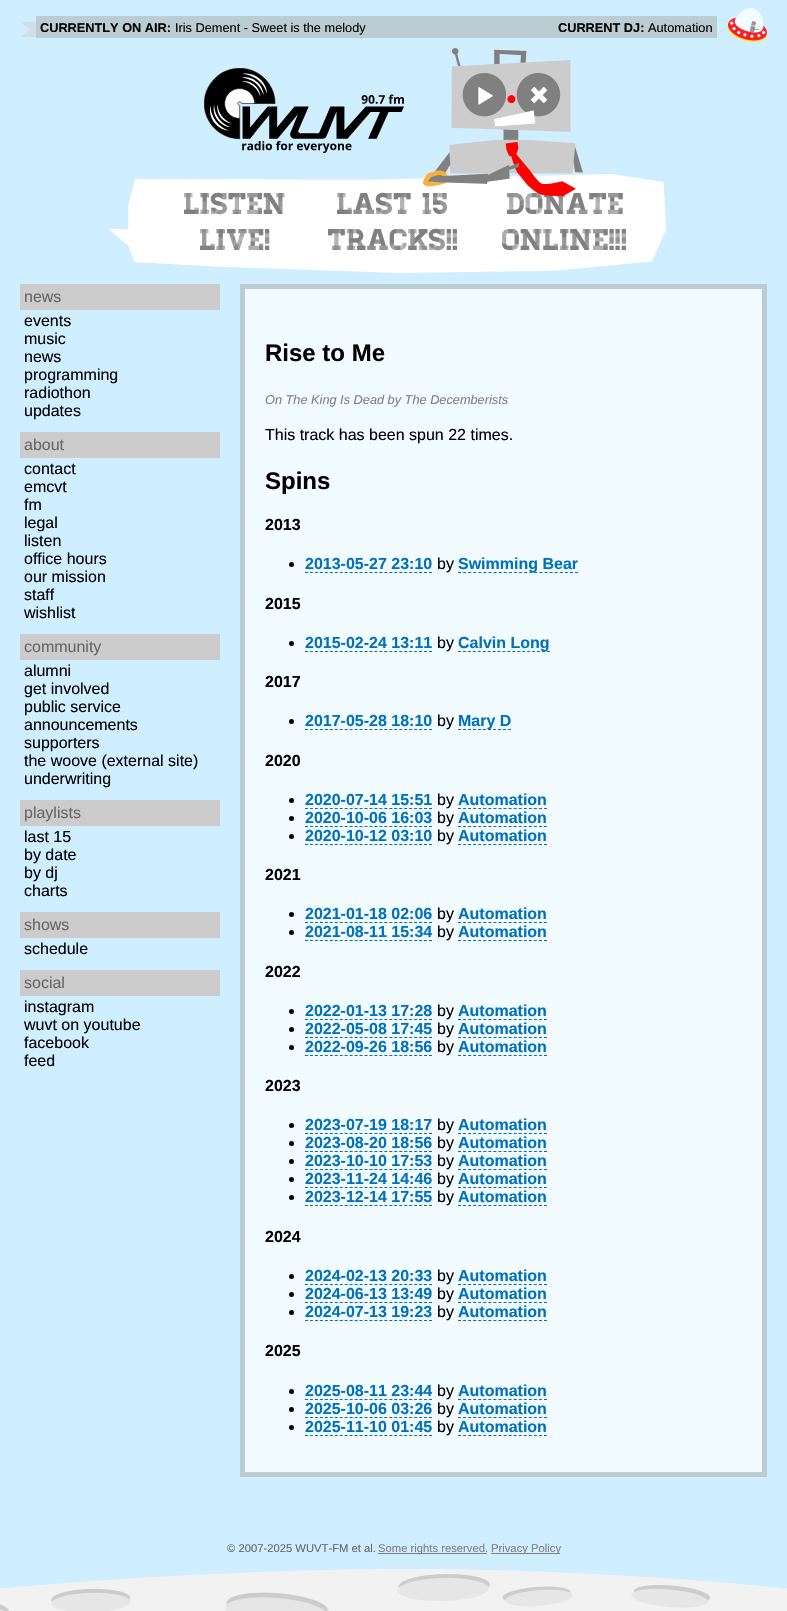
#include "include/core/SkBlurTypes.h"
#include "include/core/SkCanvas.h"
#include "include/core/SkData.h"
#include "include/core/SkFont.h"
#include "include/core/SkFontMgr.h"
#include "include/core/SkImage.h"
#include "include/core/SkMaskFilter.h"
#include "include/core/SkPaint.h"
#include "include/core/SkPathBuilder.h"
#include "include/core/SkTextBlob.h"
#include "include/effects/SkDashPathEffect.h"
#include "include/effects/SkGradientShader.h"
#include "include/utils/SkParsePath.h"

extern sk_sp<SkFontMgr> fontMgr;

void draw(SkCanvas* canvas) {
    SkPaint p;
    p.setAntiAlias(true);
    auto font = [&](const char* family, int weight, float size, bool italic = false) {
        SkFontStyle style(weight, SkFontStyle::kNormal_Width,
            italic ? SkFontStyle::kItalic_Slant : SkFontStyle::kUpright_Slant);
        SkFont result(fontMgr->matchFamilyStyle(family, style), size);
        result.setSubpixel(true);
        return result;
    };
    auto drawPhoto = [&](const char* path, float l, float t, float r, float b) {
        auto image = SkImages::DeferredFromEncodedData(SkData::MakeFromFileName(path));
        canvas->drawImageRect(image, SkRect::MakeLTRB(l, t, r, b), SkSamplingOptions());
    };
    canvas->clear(0xFFCFEEFF);
    drawPhoto("media/1.png", 0, 1569, 787, 1611);
    drawPhoto("media/2.png", 20, 8, 767, 42);
    p.setColor(0xFFBCCCD3);
    canvas->drawRect(SkRect::MakeLTRB(36, 16, 717, 38), p);
    auto font1 = font("Liberation Sans", 700, 12.75f);
    p.setColor(0xFF000000);
    canvas->drawString("CURRENTLY ON AIR:", 40, 32, font1, p);
    auto font2 = font("Liberation Sans", 400, 12.75f);
    canvas->drawString("Iris Dement - Sweet is the melody", 175, 32, font2, p);
    canvas->drawString("CURRENT DJ:", 558, 32, font1, p);
    canvas->drawString("Automation", 648, 32, font2, p);
    drawPhoto("media/3.png", 204, 68, 404, 153);
    drawPhoto("media/7.png", 108, 174, 666, 273);
    auto font3 = font("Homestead", 400, 30);
    p.setColor(0xFF808080);
    canvas->drawString("LAST 15", 337, 214, font3, p);
    canvas->drawString("DONATE", 507, 214, font3, p);
    drawPhoto("media/4.png", 423, 48, 583, 196);
    drawPhoto("media/5.png", 478, 87, 493, 105);
    drawPhoto("media/6.png", 530, 86, 548, 104);
    {
        const struct { const char* s; float x, y; } items[] = {
            {"LISTEN", 184, 214},
            {"LIVE!", 200, 250},
            {"TRACKS!!", 328, 250},
            {"ONLINE!!!", 502, 250},
        };
        for (auto [s, x, y] : items) {
            canvas->drawString(s, x, y, font3, p);
        }
    }
    p.setColor(0xFFCCCCCC);
    canvas->drawRect(SkRect::MakeLTRB(20, 284, 220, 310), p);
    auto font4 = font("Liberation Sans", 400, 16);
    p.setColor(0xFF666666);
    canvas->drawString("news", 24, 302, font4, p);
    p.setColor(0xFF000000);
    {
        const struct { const char* s; float x, y; } items[] = {
            {"events", 24, 326},
            {"music", 24, 344},
            {"news", 24, 362},
            {"programming", 24, 380},
            {"radiothon", 24, 398},
            {"updates", 24, 416},
        };
        for (auto [s, x, y] : items) {
            canvas->drawString(s, x, y, font4, p);
        }
    }
    p.setColor(0xFFCCCCCC);
    canvas->drawRect(SkRect::MakeLTRB(20, 432, 220, 458), p);
    p.setColor(0xFF666666);
    canvas->drawString("about", 24, 450, font4, p);
    p.setColor(0xFF000000);
    {
        const struct { const char* s; float x, y; } items[] = {
            {"contact", 24, 474},
            {"emcvt", 24, 492},
            {"fm", 24, 510},
            {"legal", 24, 528},
            {"listen", 24, 546},
            {"office hours", 24, 564},
            {"our mission", 24, 582},
            {"staff", 24, 600},
            {"wishlist", 24, 618},
        };
        for (auto [s, x, y] : items) {
            canvas->drawString(s, x, y, font4, p);
        }
    }
    p.setColor(0xFFCCCCCC);
    canvas->drawRect(SkRect::MakeLTRB(20, 634, 220, 660), p);
    p.setColor(0xFF666666);
    canvas->drawString("community", 24, 652, font4, p);
    p.setColor(0xFF000000);
    {
        const struct { const char* s; float x, y; } items[] = {
            {"alumni", 24, 676},
            {"get involved", 24, 694},
            {"public service", 24, 712},
            {"announcements", 24, 730},
            {"supporters", 24, 748},
            {"the woove (external site)", 24, 766},
            {"underwriting", 24, 784},
        };
        for (auto [s, x, y] : items) {
            canvas->drawString(s, x, y, font4, p);
        }
    }
    p.setColor(0xFFCCCCCC);
    canvas->drawRect(SkRect::MakeLTRB(20, 800, 220, 826), p);
    p.setColor(0xFF666666);
    canvas->drawString("playlists", 24, 818, font4, p);
    p.setColor(0xFF000000);
    {
        const struct { const char* s; float x, y; } items[] = {
            {"last 15", 24, 842},
            {"by date", 24, 860},
            {"by dj", 24, 878},
            {"charts", 24, 896},
        };
        for (auto [s, x, y] : items) {
            canvas->drawString(s, x, y, font4, p);
        }
    }
    p.setColor(0xFFCCCCCC);
    canvas->drawRect(SkRect::MakeLTRB(20, 912, 220, 938), p);
    p.setColor(0xFF666666);
    canvas->drawString("shows", 24, 930, font4, p);
    p.setColor(0xFF000000);
    canvas->drawString("schedule", 24, 954, font4, p);
    p.setColor(0xFFCCCCCC);
    canvas->drawRect(SkRect::MakeLTRB(20, 970, 220, 996), p);
    p.setColor(0xFF666666);
    canvas->drawString("social", 24, 988, font4, p);
    p.setColor(0xFF000000);
    {
        const struct { const char* s; float x, y; } items[] = {
            {"instagram", 24, 1012},
            {"wuvt on youtube", 24, 1030},
            {"facebook", 24, 1048},
            {"feed", 24, 1066},
        };
        for (auto [s, x, y] : items) {
            canvas->drawString(s, x, y, font4, p);
        }
    }
    p.setColor(0xFFF2FBFF);
    canvas->drawRect(SkRect::MakeLTRB(242.5f, 286.5f, 764.5f, 1474.5f), p);
    p.setStyle(SkPaint::kStroke_Style);
    p.setStrokeWidth(5);
    p.setColor(0xFFBCCCD3);
    canvas->drawRect(SkRect::MakeLTRB(242.5f, 286.5f, 764.5f, 1474.5f), p);
    auto font5 = font("Liberation Sans", 700, 24);
    p.setStyle(SkPaint::kFill_Style);
    p.setColor(0xFF000000);
    canvas->drawString("Rise to Me", 265, 361, font5, p);
    auto font6 = font("Liberation Sans", 400, 12.75f, true);
    p.setColor(0xFF808080);
    canvas->drawString("On The King Is Dead by The Decemberists", 265, 404, font6, p);
    p.setColor(0xFF000000);
    canvas->drawString("This track has been spun 22 times.", 265, 440, font4, p);
    canvas->drawString("Spins", 265, 489, font5, p);
    auto font7 = font("Liberation Sans", 700, 16);
    canvas->drawString("2013", 265, 530, font7, p);
    canvas->drawCircle(291.5f, 564.5f, 2.5f, p);
    p.setColor(0xFF0071BC);
    canvas->drawString("2013-05-27 23:10", 305, 569, font7, p);
    p.setStyle(SkPaint::kStroke_Style);
    p.setStrokeWidth(1);
    p.setPathEffect(SkDashPathEffect::Make({{3, 1.96f}}, 0));
    canvas->drawPath(SkPathBuilder().moveTo(305, 572.5f).lineTo(432, 572.5f).detach(), p);
    p.setPathEffect(nullptr);
    p.setStyle(SkPaint::kFill_Style);
    p.setColor(0xFF000000);
    canvas->drawString("by", 437, 569, font4, p);
    p.setStyle(SkPaint::kStroke_Style);
    p.setColor(0xFF0071BC);
    p.setPathEffect(SkDashPathEffect::Make({{3, 2.09f}}, 0));
    canvas->drawPath(SkPathBuilder().moveTo(458, 572.5f).lineTo(578, 572.5f).detach(), p);
    p.setPathEffect(nullptr);
    p.setStyle(SkPaint::kFill_Style);
    canvas->drawString("Swimming Bear", 458, 569, font7, p);
    p.setColor(0xFF000000);
    canvas->drawString("2015", 265, 609, font7, p);
    canvas->drawCircle(291.5f, 643.5f, 2.5f, p);
    p.setColor(0xFF0071BC);
    canvas->drawString("2015-02-24 13:11", 305, 648, font7, p);
    p.setStyle(SkPaint::kStroke_Style);
    p.setPathEffect(SkDashPathEffect::Make({{3, 1.96f}}, 0));
    canvas->drawPath(SkPathBuilder().moveTo(305, 651.5f).lineTo(432, 651.5f).detach(), p);
    p.setPathEffect(nullptr);
    p.setStyle(SkPaint::kFill_Style);
    p.setColor(0xFF000000);
    canvas->drawString("by", 437, 648, font4, p);
    p.setStyle(SkPaint::kStroke_Style);
    p.setColor(0xFF0071BC);
    p.setPathEffect(SkDashPathEffect::Make({{3, 1.94f}}, 0));
    canvas->drawPath(SkPathBuilder().moveTo(458, 651.5f).lineTo(550, 651.5f).detach(), p);
    p.setPathEffect(nullptr);
    p.setStyle(SkPaint::kFill_Style);
    canvas->drawString("Calvin Long", 458, 648, font7, p);
    p.setColor(0xFF000000);
    canvas->drawString("2017", 265, 687, font7, p);
    canvas->drawCircle(291.5f, 721.5f, 2.5f, p);
    p.setColor(0xFF0071BC);
    canvas->drawString("2017-05-28 18:10", 305, 726, font7, p);
    p.setStyle(SkPaint::kStroke_Style);
    p.setPathEffect(SkDashPathEffect::Make({{3, 1.96f}}, 0));
    canvas->drawPath(SkPathBuilder().moveTo(305, 729.5f).lineTo(432, 729.5f).detach(), p);
    p.setPathEffect(nullptr);
    p.setStyle(SkPaint::kFill_Style);
    p.setColor(0xFF000000);
    canvas->drawString("by", 437, 726, font4, p);
    p.setStyle(SkPaint::kStroke_Style);
    p.setColor(0xFF0071BC);
    p.setPathEffect(SkDashPathEffect::Make({{3, 2}}, 0));
    canvas->drawPath(SkPathBuilder().moveTo(458, 729.5f).lineTo(511, 729.5f).detach(), p);
    p.setPathEffect(nullptr);
    p.setStyle(SkPaint::kFill_Style);
    canvas->drawString("Mary D", 458, 726, font7, p);
    p.setColor(0xFF000000);
    canvas->drawString("2020", 265, 766, font7, p);
    canvas->drawCircle(291.5f, 800.5f, 2.5f, p);
    p.setColor(0xFF0071BC);
    canvas->drawString("2020-07-14 15:51", 305, 805, font7, p);
    p.setStyle(SkPaint::kStroke_Style);
    p.setPathEffect(SkDashPathEffect::Make({{3, 1.96f}}, 0));
    canvas->drawPath(SkPathBuilder().moveTo(305, 808.5f).lineTo(432, 808.5f).detach(), p);
    p.setPathEffect(nullptr);
    p.setStyle(SkPaint::kFill_Style);
    p.setColor(0xFF000000);
    canvas->drawString("by", 437, 805, font4, p);
    p.setColor(0xFF0071BC);
    canvas->drawString("Automation", 458, 805, font7, p);
    p.setStyle(SkPaint::kStroke_Style);
    p.setPathEffect(SkDashPathEffect::Make({{3, 2.06f}}, 0));
    canvas->drawPath(SkPathBuilder().moveTo(458, 808.5f).lineTo(547, 808.5f).detach(), p);
    p.setPathEffect(nullptr);
    p.setStyle(SkPaint::kFill_Style);
    p.setColor(0xFF000000);
    canvas->drawCircle(291.5f, 818.5f, 2.5f, p);
    p.setColor(0xFF0071BC);
    canvas->drawString("2020-10-06 16:03", 305, 823, font7, p);
    p.setStyle(SkPaint::kStroke_Style);
    p.setPathEffect(SkDashPathEffect::Make({{3, 1.96f}}, 0));
    canvas->drawPath(SkPathBuilder().moveTo(305, 826.5f).lineTo(432, 826.5f).detach(), p);
    p.setPathEffect(nullptr);
    p.setStyle(SkPaint::kFill_Style);
    p.setColor(0xFF000000);
    canvas->drawString("by", 437, 823, font4, p);
    p.setColor(0xFF0071BC);
    canvas->drawString("Automation", 458, 823, font7, p);
    p.setStyle(SkPaint::kStroke_Style);
    p.setPathEffect(SkDashPathEffect::Make({{3, 2.06f}}, 0));
    canvas->drawPath(SkPathBuilder().moveTo(458, 826.5f).lineTo(547, 826.5f).detach(), p);
    p.setPathEffect(nullptr);
    p.setStyle(SkPaint::kFill_Style);
    p.setColor(0xFF000000);
    canvas->drawCircle(291.5f, 836.5f, 2.5f, p);
    p.setColor(0xFF0071BC);
    canvas->drawString("2020-10-12 03:10", 305, 841, font7, p);
    p.setStyle(SkPaint::kStroke_Style);
    p.setPathEffect(SkDashPathEffect::Make({{3, 1.96f}}, 0));
    canvas->drawPath(SkPathBuilder().moveTo(305, 844.5f).lineTo(432, 844.5f).detach(), p);
    p.setPathEffect(nullptr);
    p.setStyle(SkPaint::kFill_Style);
    p.setColor(0xFF000000);
    canvas->drawString("by", 437, 841, font4, p);
    p.setColor(0xFF0071BC);
    canvas->drawString("Automation", 458, 841, font7, p);
    p.setStyle(SkPaint::kStroke_Style);
    p.setPathEffect(SkDashPathEffect::Make({{3, 2.06f}}, 0));
    canvas->drawPath(SkPathBuilder().moveTo(458, 844.5f).lineTo(547, 844.5f).detach(), p);
    p.setPathEffect(nullptr);
    p.setStyle(SkPaint::kFill_Style);
    p.setColor(0xFF000000);
    canvas->drawString("2021", 265, 880, font7, p);
    canvas->drawCircle(291.5f, 914.5f, 2.5f, p);
    p.setColor(0xFF0071BC);
    canvas->drawString("2021-01-18 02:06", 305, 919, font7, p);
    p.setStyle(SkPaint::kStroke_Style);
    p.setPathEffect(SkDashPathEffect::Make({{3, 1.96f}}, 0));
    canvas->drawPath(SkPathBuilder().moveTo(305, 922.5f).lineTo(432, 922.5f).detach(), p);
    p.setPathEffect(nullptr);
    p.setStyle(SkPaint::kFill_Style);
    p.setColor(0xFF000000);
    canvas->drawString("by", 437, 919, font4, p);
    p.setColor(0xFF0071BC);
    canvas->drawString("Automation", 458, 919, font7, p);
    p.setStyle(SkPaint::kStroke_Style);
    p.setPathEffect(SkDashPathEffect::Make({{3, 2.06f}}, 0));
    canvas->drawPath(SkPathBuilder().moveTo(458, 922.5f).lineTo(547, 922.5f).detach(), p);
    p.setPathEffect(nullptr);
    p.setStyle(SkPaint::kFill_Style);
    p.setColor(0xFF000000);
    canvas->drawCircle(291.5f, 932.5f, 2.5f, p);
    p.setColor(0xFF0071BC);
    canvas->drawString("2021-08-11 15:34", 305, 937, font7, p);
    p.setStyle(SkPaint::kStroke_Style);
    p.setPathEffect(SkDashPathEffect::Make({{3, 1.96f}}, 0));
    canvas->drawPath(SkPathBuilder().moveTo(305, 940.5f).lineTo(432, 940.5f).detach(), p);
    p.setPathEffect(nullptr);
    p.setStyle(SkPaint::kFill_Style);
    p.setColor(0xFF000000);
    canvas->drawString("by", 437, 937, font4, p);
    p.setColor(0xFF0071BC);
    canvas->drawString("Automation", 458, 937, font7, p);
    p.setStyle(SkPaint::kStroke_Style);
    p.setPathEffect(SkDashPathEffect::Make({{3, 2.06f}}, 0));
    canvas->drawPath(SkPathBuilder().moveTo(458, 940.5f).lineTo(547, 940.5f).detach(), p);
    p.setPathEffect(nullptr);
    p.setStyle(SkPaint::kFill_Style);
    p.setColor(0xFF000000);
    canvas->drawString("2022", 265, 977, font7, p);
    canvas->drawCircle(291.5f, 1011.5f, 2.5f, p);
    p.setColor(0xFF0071BC);
    canvas->drawString("2022-01-13 17:28", 305, 1016, font7, p);
    p.setStyle(SkPaint::kStroke_Style);
    p.setPathEffect(SkDashPathEffect::Make({{3, 1.96f}}, 0));
    canvas->drawPath(SkPathBuilder().moveTo(305, 1019.5f).lineTo(432, 1019.5f).detach(), p);
    p.setPathEffect(nullptr);
    p.setStyle(SkPaint::kFill_Style);
    p.setColor(0xFF000000);
    canvas->drawString("by", 437, 1016, font4, p);
    p.setColor(0xFF0071BC);
    canvas->drawString("Automation", 458, 1016, font7, p);
    p.setStyle(SkPaint::kStroke_Style);
    p.setPathEffect(SkDashPathEffect::Make({{3, 2.06f}}, 0));
    canvas->drawPath(SkPathBuilder().moveTo(458, 1019.5f).lineTo(547, 1019.5f).detach(), p);
    p.setPathEffect(nullptr);
    p.setStyle(SkPaint::kFill_Style);
    p.setColor(0xFF000000);
    canvas->drawCircle(291.5f, 1029.5f, 2.5f, p);
    p.setColor(0xFF0071BC);
    canvas->drawString("2022-05-08 17:45", 305, 1034, font7, p);
    p.setStyle(SkPaint::kStroke_Style);
    p.setPathEffect(SkDashPathEffect::Make({{3, 1.96f}}, 0));
    canvas->drawPath(SkPathBuilder().moveTo(305, 1037.5f).lineTo(432, 1037.5f).detach(), p);
    p.setPathEffect(nullptr);
    p.setStyle(SkPaint::kFill_Style);
    p.setColor(0xFF000000);
    canvas->drawString("by", 437, 1034, font4, p);
    p.setColor(0xFF0071BC);
    canvas->drawString("Automation", 458, 1034, font7, p);
    p.setStyle(SkPaint::kStroke_Style);
    p.setPathEffect(SkDashPathEffect::Make({{3, 2.06f}}, 0));
    canvas->drawPath(SkPathBuilder().moveTo(458, 1037.5f).lineTo(547, 1037.5f).detach(), p);
    p.setPathEffect(nullptr);
    p.setStyle(SkPaint::kFill_Style);
    p.setColor(0xFF000000);
    canvas->drawCircle(291.5f, 1047.5f, 2.5f, p);
    p.setColor(0xFF0071BC);
    canvas->drawString("2022-09-26 18:56", 305, 1052, font7, p);
    p.setStyle(SkPaint::kStroke_Style);
    p.setPathEffect(SkDashPathEffect::Make({{3, 1.96f}}, 0));
    canvas->drawPath(SkPathBuilder().moveTo(305, 1055.5f).lineTo(432, 1055.5f).detach(), p);
    p.setPathEffect(nullptr);
    p.setStyle(SkPaint::kFill_Style);
    p.setColor(0xFF000000);
    canvas->drawString("by", 437, 1052, font4, p);
    p.setColor(0xFF0071BC);
    canvas->drawString("Automation", 458, 1052, font7, p);
    p.setStyle(SkPaint::kStroke_Style);
    p.setPathEffect(SkDashPathEffect::Make({{3, 2.06f}}, 0));
    canvas->drawPath(SkPathBuilder().moveTo(458, 1055.5f).lineTo(547, 1055.5f).detach(), p);
    p.setPathEffect(nullptr);
    p.setStyle(SkPaint::kFill_Style);
    p.setColor(0xFF000000);
    canvas->drawString("2023", 265, 1091, font7, p);
    canvas->drawCircle(291.5f, 1125.5f, 2.5f, p);
    p.setColor(0xFF0071BC);
    canvas->drawString("2023-07-19 18:17", 305, 1130, font7, p);
    p.setStyle(SkPaint::kStroke_Style);
    p.setPathEffect(SkDashPathEffect::Make({{3, 1.96f}}, 0));
    canvas->drawPath(SkPathBuilder().moveTo(305, 1133.5f).lineTo(432, 1133.5f).detach(), p);
    p.setPathEffect(nullptr);
    p.setStyle(SkPaint::kFill_Style);
    p.setColor(0xFF000000);
    canvas->drawString("by", 437, 1130, font4, p);
    p.setColor(0xFF0071BC);
    canvas->drawString("Automation", 458, 1130, font7, p);
    p.setStyle(SkPaint::kStroke_Style);
    p.setPathEffect(SkDashPathEffect::Make({{3, 2.06f}}, 0));
    canvas->drawPath(SkPathBuilder().moveTo(458, 1133.5f).lineTo(547, 1133.5f).detach(), p);
    p.setPathEffect(nullptr);
    p.setStyle(SkPaint::kFill_Style);
    p.setColor(0xFF000000);
    canvas->drawCircle(291.5f, 1143.5f, 2.5f, p);
    p.setColor(0xFF0071BC);
    canvas->drawString("2023-08-20 18:56", 305, 1148, font7, p);
    p.setStyle(SkPaint::kStroke_Style);
    p.setPathEffect(SkDashPathEffect::Make({{3, 1.96f}}, 0));
    canvas->drawPath(SkPathBuilder().moveTo(305, 1151.5f).lineTo(432, 1151.5f).detach(), p);
    p.setPathEffect(nullptr);
    p.setStyle(SkPaint::kFill_Style);
    p.setColor(0xFF000000);
    canvas->drawString("by", 437, 1148, font4, p);
    p.setColor(0xFF0071BC);
    canvas->drawString("Automation", 458, 1148, font7, p);
    p.setStyle(SkPaint::kStroke_Style);
    p.setPathEffect(SkDashPathEffect::Make({{3, 2.06f}}, 0));
    canvas->drawPath(SkPathBuilder().moveTo(458, 1151.5f).lineTo(547, 1151.5f).detach(), p);
    p.setPathEffect(nullptr);
    p.setStyle(SkPaint::kFill_Style);
    p.setColor(0xFF000000);
    canvas->drawCircle(291.5f, 1161.5f, 2.5f, p);
    p.setColor(0xFF0071BC);
    canvas->drawString("2023-10-10 17:53", 305, 1166, font7, p);
    p.setStyle(SkPaint::kStroke_Style);
    p.setPathEffect(SkDashPathEffect::Make({{3, 1.96f}}, 0));
    canvas->drawPath(SkPathBuilder().moveTo(305, 1169.5f).lineTo(432, 1169.5f).detach(), p);
    p.setPathEffect(nullptr);
    p.setStyle(SkPaint::kFill_Style);
    p.setColor(0xFF000000);
    canvas->drawString("by", 437, 1166, font4, p);
    p.setColor(0xFF0071BC);
    canvas->drawString("Automation", 458, 1166, font7, p);
    p.setStyle(SkPaint::kStroke_Style);
    p.setPathEffect(SkDashPathEffect::Make({{3, 2.06f}}, 0));
    canvas->drawPath(SkPathBuilder().moveTo(458, 1169.5f).lineTo(547, 1169.5f).detach(), p);
    p.setPathEffect(nullptr);
    p.setStyle(SkPaint::kFill_Style);
    p.setColor(0xFF000000);
    canvas->drawCircle(291.5f, 1179.5f, 2.5f, p);
    p.setColor(0xFF0071BC);
    canvas->drawString("2023-11-24 14:46", 305, 1184, font7, p);
    p.setStyle(SkPaint::kStroke_Style);
    p.setPathEffect(SkDashPathEffect::Make({{3, 1.96f}}, 0));
    canvas->drawPath(SkPathBuilder().moveTo(305, 1187.5f).lineTo(432, 1187.5f).detach(), p);
    p.setPathEffect(nullptr);
    p.setStyle(SkPaint::kFill_Style);
    p.setColor(0xFF000000);
    canvas->drawString("by", 437, 1184, font4, p);
    p.setColor(0xFF0071BC);
    canvas->drawString("Automation", 458, 1184, font7, p);
    p.setStyle(SkPaint::kStroke_Style);
    p.setPathEffect(SkDashPathEffect::Make({{3, 2.06f}}, 0));
    canvas->drawPath(SkPathBuilder().moveTo(458, 1187.5f).lineTo(547, 1187.5f).detach(), p);
    p.setPathEffect(nullptr);
    p.setStyle(SkPaint::kFill_Style);
    p.setColor(0xFF000000);
    canvas->drawCircle(291.5f, 1197.5f, 2.5f, p);
    p.setColor(0xFF0071BC);
    canvas->drawString("2023-12-14 17:55", 305, 1202, font7, p);
    p.setStyle(SkPaint::kStroke_Style);
    p.setPathEffect(SkDashPathEffect::Make({{3, 1.96f}}, 0));
    canvas->drawPath(SkPathBuilder().moveTo(305, 1205.5f).lineTo(432, 1205.5f).detach(), p);
    p.setPathEffect(nullptr);
    p.setStyle(SkPaint::kFill_Style);
    p.setColor(0xFF000000);
    canvas->drawString("by", 437, 1202, font4, p);
    p.setColor(0xFF0071BC);
    canvas->drawString("Automation", 458, 1202, font7, p);
    p.setStyle(SkPaint::kStroke_Style);
    p.setPathEffect(SkDashPathEffect::Make({{3, 2.06f}}, 0));
    canvas->drawPath(SkPathBuilder().moveTo(458, 1205.5f).lineTo(547, 1205.5f).detach(), p);
    p.setPathEffect(nullptr);
    p.setStyle(SkPaint::kFill_Style);
    p.setColor(0xFF000000);
    canvas->drawString("2024", 265, 1242, font7, p);
    canvas->drawCircle(291.5f, 1276.5f, 2.5f, p);
    p.setColor(0xFF0071BC);
    canvas->drawString("2024-02-13 20:33", 305, 1281, font7, p);
    p.setStyle(SkPaint::kStroke_Style);
    p.setPathEffect(SkDashPathEffect::Make({{3, 1.96f}}, 0));
    canvas->drawPath(SkPathBuilder().moveTo(305, 1284.5f).lineTo(432, 1284.5f).detach(), p);
    p.setPathEffect(nullptr);
    p.setStyle(SkPaint::kFill_Style);
    p.setColor(0xFF000000);
    canvas->drawString("by", 437, 1281, font4, p);
    p.setColor(0xFF0071BC);
    canvas->drawString("Automation", 458, 1281, font7, p);
    p.setStyle(SkPaint::kStroke_Style);
    p.setPathEffect(SkDashPathEffect::Make({{3, 2.06f}}, 0));
    canvas->drawPath(SkPathBuilder().moveTo(458, 1284.5f).lineTo(547, 1284.5f).detach(), p);
    p.setPathEffect(nullptr);
    p.setStyle(SkPaint::kFill_Style);
    p.setColor(0xFF000000);
    canvas->drawCircle(291.5f, 1294.5f, 2.5f, p);
    p.setColor(0xFF0071BC);
    canvas->drawString("2024-06-13 13:49", 305, 1299, font7, p);
    p.setStyle(SkPaint::kStroke_Style);
    p.setPathEffect(SkDashPathEffect::Make({{3, 1.96f}}, 0));
    canvas->drawPath(SkPathBuilder().moveTo(305, 1302.5f).lineTo(432, 1302.5f).detach(), p);
    p.setPathEffect(nullptr);
    p.setStyle(SkPaint::kFill_Style);
    p.setColor(0xFF000000);
    canvas->drawString("by", 437, 1299, font4, p);
    p.setColor(0xFF0071BC);
    canvas->drawString("Automation", 458, 1299, font7, p);
    p.setStyle(SkPaint::kStroke_Style);
    p.setPathEffect(SkDashPathEffect::Make({{3, 2.06f}}, 0));
    canvas->drawPath(SkPathBuilder().moveTo(458, 1302.5f).lineTo(547, 1302.5f).detach(), p);
    p.setPathEffect(nullptr);
    p.setStyle(SkPaint::kFill_Style);
    p.setColor(0xFF000000);
    canvas->drawCircle(291.5f, 1312.5f, 2.5f, p);
    p.setColor(0xFF0071BC);
    canvas->drawString("2024-07-13 19:23", 305, 1317, font7, p);
    p.setStyle(SkPaint::kStroke_Style);
    p.setPathEffect(SkDashPathEffect::Make({{3, 1.96f}}, 0));
    canvas->drawPath(SkPathBuilder().moveTo(305, 1320.5f).lineTo(432, 1320.5f).detach(), p);
    p.setPathEffect(nullptr);
    p.setStyle(SkPaint::kFill_Style);
    p.setColor(0xFF000000);
    canvas->drawString("by", 437, 1317, font4, p);
    p.setColor(0xFF0071BC);
    canvas->drawString("Automation", 458, 1317, font7, p);
    p.setStyle(SkPaint::kStroke_Style);
    p.setPathEffect(SkDashPathEffect::Make({{3, 2.06f}}, 0));
    canvas->drawPath(SkPathBuilder().moveTo(458, 1320.5f).lineTo(547, 1320.5f).detach(), p);
    p.setPathEffect(nullptr);
    p.setStyle(SkPaint::kFill_Style);
    p.setColor(0xFF000000);
    canvas->drawString("2025", 265, 1356, font7, p);
    canvas->drawCircle(291.5f, 1391.5f, 2.5f, p);
    p.setColor(0xFF0071BC);
    canvas->drawString("2025-08-11 23:44", 305, 1396, font7, p);
    p.setStyle(SkPaint::kStroke_Style);
    p.setPathEffect(SkDashPathEffect::Make({{3, 1.96f}}, 0));
    canvas->drawPath(SkPathBuilder().moveTo(305, 1399.5f).lineTo(432, 1399.5f).detach(), p);
    p.setPathEffect(nullptr);
    p.setStyle(SkPaint::kFill_Style);
    p.setColor(0xFF000000);
    canvas->drawString("by", 437, 1396, font4, p);
    p.setColor(0xFF0071BC);
    canvas->drawString("Automation", 458, 1396, font7, p);
    p.setStyle(SkPaint::kStroke_Style);
    p.setPathEffect(SkDashPathEffect::Make({{3, 2.06f}}, 0));
    canvas->drawPath(SkPathBuilder().moveTo(458, 1399.5f).lineTo(547, 1399.5f).detach(), p);
    p.setPathEffect(nullptr);
    p.setStyle(SkPaint::kFill_Style);
    p.setColor(0xFF000000);
    canvas->drawCircle(291.5f, 1409.5f, 2.5f, p);
    p.setColor(0xFF0071BC);
    canvas->drawString("2025-10-06 03:26", 305, 1414, font7, p);
    p.setStyle(SkPaint::kStroke_Style);
    p.setPathEffect(SkDashPathEffect::Make({{3, 1.96f}}, 0));
    canvas->drawPath(SkPathBuilder().moveTo(305, 1417.5f).lineTo(432, 1417.5f).detach(), p);
    p.setPathEffect(nullptr);
    p.setStyle(SkPaint::kFill_Style);
    p.setColor(0xFF000000);
    canvas->drawString("by", 437, 1414, font4, p);
    p.setColor(0xFF0071BC);
    canvas->drawString("Automation", 458, 1414, font7, p);
    p.setStyle(SkPaint::kStroke_Style);
    p.setPathEffect(SkDashPathEffect::Make({{3, 2.06f}}, 0));
    canvas->drawPath(SkPathBuilder().moveTo(458, 1417.5f).lineTo(547, 1417.5f).detach(), p);
    p.setPathEffect(nullptr);
    p.setStyle(SkPaint::kFill_Style);
    p.setColor(0xFF000000);
    canvas->drawCircle(291.5f, 1427.5f, 2.5f, p);
    p.setColor(0xFF0071BC);
    canvas->drawString("2025-11-10 01:45", 305, 1432, font7, p);
    p.setStyle(SkPaint::kStroke_Style);
    p.setPathEffect(SkDashPathEffect::Make({{3, 1.96f}}, 0));
    canvas->drawPath(SkPathBuilder().moveTo(305, 1435.5f).lineTo(432, 1435.5f).detach(), p);
    p.setPathEffect(nullptr);
    p.setStyle(SkPaint::kFill_Style);
    p.setColor(0xFF000000);
    canvas->drawString("by", 437, 1432, font4, p);
    p.setColor(0xFF0071BC);
    canvas->drawString("Automation", 458, 1432, font7, p);
    p.setStyle(SkPaint::kStroke_Style);
    p.setPathEffect(SkDashPathEffect::Make({{3, 2.06f}}, 0));
    canvas->drawPath(SkPathBuilder().moveTo(458, 1435.5f).lineTo(547, 1435.5f).detach(), p);
    p.setPathEffect(nullptr);
    auto font8 = font("Liberation Sans", 400, 11.25f);
    p.setStyle(SkPaint::kFill_Style);
    p.setColor(0xFF666666);
    canvas->drawString("© 2007-2025 WUVT-FM et al.", 227, 1552, font8, p);
    p.setColor(0xFF808080);
    canvas->drawRect(SkRect::MakeLTRB(378, 1553, 487, 1554), p);
    canvas->drawString("Some rights reserved.", 378, 1552, font8, p);
    canvas->drawRect(SkRect::MakeLTRB(491, 1553, 560, 1554), p);
    canvas->drawString("Privacy Policy", 491, 1552, font8, p);
}
